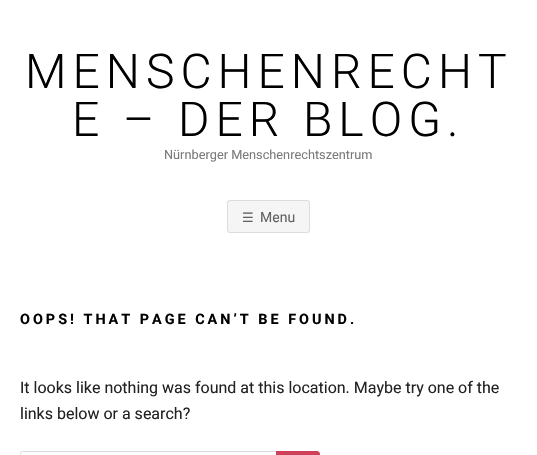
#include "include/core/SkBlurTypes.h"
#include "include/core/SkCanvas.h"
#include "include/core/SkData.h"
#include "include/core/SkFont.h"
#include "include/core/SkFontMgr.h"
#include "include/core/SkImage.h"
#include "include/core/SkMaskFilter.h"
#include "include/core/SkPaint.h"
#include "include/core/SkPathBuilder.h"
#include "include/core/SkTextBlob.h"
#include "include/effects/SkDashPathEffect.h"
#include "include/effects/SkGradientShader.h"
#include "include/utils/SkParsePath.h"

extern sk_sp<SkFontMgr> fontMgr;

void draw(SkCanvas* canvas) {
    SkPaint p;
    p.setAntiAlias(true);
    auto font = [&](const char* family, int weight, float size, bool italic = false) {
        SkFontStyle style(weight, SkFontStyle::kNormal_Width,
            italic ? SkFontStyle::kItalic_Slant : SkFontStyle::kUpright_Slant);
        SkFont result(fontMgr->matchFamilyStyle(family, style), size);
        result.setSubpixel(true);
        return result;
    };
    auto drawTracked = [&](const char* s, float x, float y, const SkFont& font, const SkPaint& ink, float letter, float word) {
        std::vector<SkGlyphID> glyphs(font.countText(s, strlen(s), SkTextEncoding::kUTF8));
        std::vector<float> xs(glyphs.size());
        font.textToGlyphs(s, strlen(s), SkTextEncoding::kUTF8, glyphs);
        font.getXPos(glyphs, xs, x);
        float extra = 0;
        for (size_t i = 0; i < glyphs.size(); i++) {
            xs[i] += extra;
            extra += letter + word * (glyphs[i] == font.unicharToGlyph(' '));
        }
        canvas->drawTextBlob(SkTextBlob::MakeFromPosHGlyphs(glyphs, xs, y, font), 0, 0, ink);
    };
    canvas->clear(0xFFFFFFFF);
    auto font1 = font("Roboto", 300, 48);
    p.setColor(0xFF000000);
    drawTracked("MENSCHENRECHT", 25, 88, font1, p, 6, 0);
    drawTracked("E – DER BLOG.", 72, 136, font1, p, 6, 0);
    auto font2 = font("Roboto", 400, 12.75f);
    p.setColor(0xFF7A7A7A);
    canvas->drawString("Nürnberger Menschenrechtszentrum", 164, 159, font2, p);
    p.setColor(0xFFF5F5F5);
    canvas->drawRoundRect(SkRect::MakeLTRB(227, 200, 310, 233), 3, 3, p);
    p.setStyle(SkPaint::kStroke_Style);
    p.setStrokeWidth(1);
    p.setColor(0x1A000000);
    canvas->drawRoundRect(SkRect::MakeLTRB(227.5f, 200.5f, 309.5f, 232.5f), 2.5f, 2.5f, p);
    auto font3 = font("DejaVu Sans", 400, 13);
    p.setStyle(SkPaint::kFill_Style);
    p.setColor(0xFF626262);
    canvas->drawString("☰", 242, 222, font3, p);
    auto font4 = font("Roboto", 400, 14);
    canvas->drawString("Menu", 260, 222, font4, p);
    auto font5 = font("Roboto", 700, 14.4f);
    p.setColor(0xFF000000);
    drawTracked("OOPS! THAT PAGE CAN’T BE FOUND.", 20, 324, font5, p, 3, 0);
    auto font6 = font("Roboto", 400, 16);
    p.setColor(0xFF222222);
    canvas->drawString("It looks like nothing was found at this location. Maybe try one of the", 20, 393, font6, p);
    canvas->drawString("links below or a search?", 20, 419, font6, p);
    p.setColor(0xFFDDDDDD);
    canvas->drawPath(SkPathBuilder(SkPathFillType::kEvenOdd).moveTo(23, 451).lineTo(276, 451).lineTo(276, 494).lineTo(23, 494).cubicTo(21, 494, 20, 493, 20, 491).lineTo(20, 454).cubicTo(20, 452, 21, 451, 23, 451).close().moveTo(23, 452).lineTo(276, 452).lineTo(276, 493).lineTo(23, 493).lineTo(21, 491).lineTo(21, 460).cubicTo(21, 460, 19, 452, 23, 452).close().detach(), p);
    p.setColor(0xFFCE405A);
    canvas->drawPath(SkPathBuilder().moveTo(276, 451).lineTo(317, 451).cubicTo(318.5f, 451, 320, 452.5f, 320, 454).lineTo(320, 455).cubicTo(320, 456.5f, 318.5f, 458, 317, 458).lineTo(276, 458).close().detach(), p);
}
